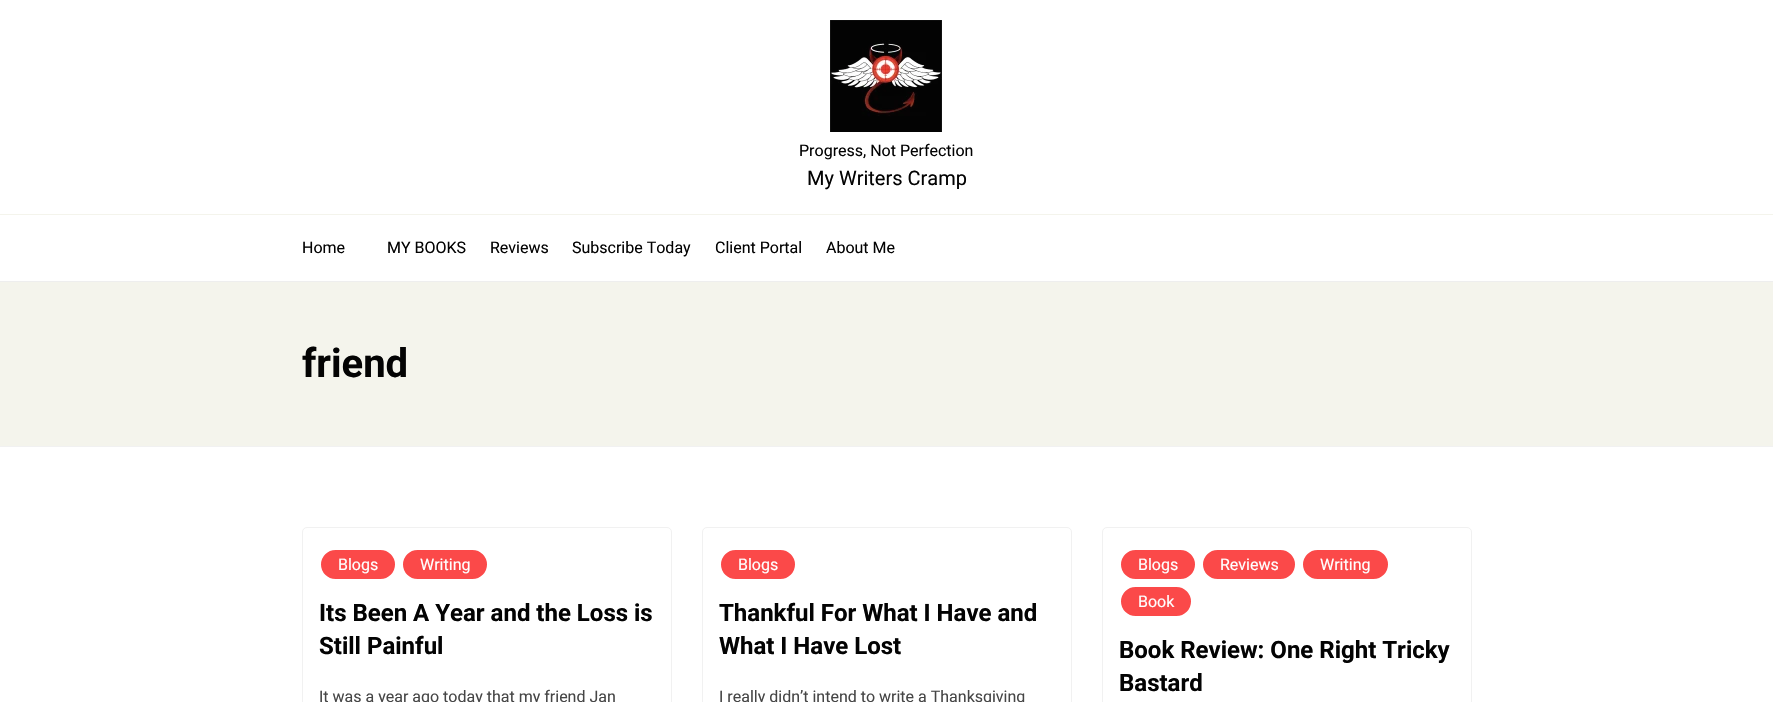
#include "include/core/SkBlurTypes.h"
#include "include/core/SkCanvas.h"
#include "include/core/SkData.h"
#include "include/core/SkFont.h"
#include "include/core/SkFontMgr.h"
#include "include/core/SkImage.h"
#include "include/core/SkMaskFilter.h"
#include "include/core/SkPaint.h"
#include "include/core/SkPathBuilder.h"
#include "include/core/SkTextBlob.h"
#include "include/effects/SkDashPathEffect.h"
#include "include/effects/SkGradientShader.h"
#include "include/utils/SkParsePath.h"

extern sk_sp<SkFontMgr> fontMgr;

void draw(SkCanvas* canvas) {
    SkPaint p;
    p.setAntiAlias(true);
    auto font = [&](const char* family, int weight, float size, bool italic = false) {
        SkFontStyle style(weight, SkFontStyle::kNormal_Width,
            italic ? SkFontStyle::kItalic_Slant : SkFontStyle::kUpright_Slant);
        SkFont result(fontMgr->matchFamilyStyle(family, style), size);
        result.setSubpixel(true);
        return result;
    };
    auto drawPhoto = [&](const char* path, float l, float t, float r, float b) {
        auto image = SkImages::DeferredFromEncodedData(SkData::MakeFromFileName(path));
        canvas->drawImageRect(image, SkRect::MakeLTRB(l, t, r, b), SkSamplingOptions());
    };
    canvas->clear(0xFFFFFFFF);
    p.setColor(0xFFEEEEEE);
    canvas->drawRect(SkRect::MakeLTRB(0, 281, 1773, 282), p);
    drawPhoto("media/1.png", 830, 20, 942, 132);
    auto font1 = font("Roboto", 400, 16);
    p.setColor(0xFF030303);
    canvas->drawString("Progress, Not Perfection", 799, 156, font1, p);
    auto font2 = font("Roboto", 400, 20);
    canvas->drawString("My Writers Cramp", 807, 185, font2, p);
    p.setColor(0xFFF4F4EC);
    canvas->drawRect(SkRect::MakeLTRB(0, 214, 1773, 215), p);
    p.setColor(0xFF030303);
    {
        const struct { const char* s; float x, y; } items[] = {
            {"Home", 302, 253},
            {"MY BOOKS", 387, 253},
            {"Reviews", 490, 253},
            {"Subscribe Today", 572, 253},
            {"Client Portal", 715, 253},
            {"About Me", 826, 253},
        };
        for (auto [s, x, y] : items) {
            canvas->drawString(s, x, y, font1, p);
        }
    }
    p.setColor(0xFFF4F4EC);
    canvas->drawRect(SkRect::MakeLTRB(0, 282, 1773, 446), p);
    p.setColor(0xFFF1F1F1);
    canvas->drawRect(SkRect::MakeLTRB(0, 446, 1773, 447), p);
    auto font3 = font("Roboto", 700, 40);
    p.setColor(0xFF030303);
    canvas->drawString("friend", 302, 377, font3, p);
    p.setStyle(SkPaint::kStroke_Style);
    p.setStrokeWidth(1);
    p.setColor(0xFFF1F1F1);
    canvas->drawRoundRect(SkRect::MakeLTRB(302.5f, 527.5f, 671.5f, 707.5f), 4.5f, 4.5f, p);
    p.setStyle(SkPaint::kFill_Style);
    p.setColor(0xFFFB4949);
    canvas->drawRoundRect(SkRect::MakeLTRB(320, 549, 396, 580), 15.5f, 15.5f, p);
    p.setStyle(SkPaint::kStroke_Style);
    p.setStrokeWidth(2);
    p.setColor(0xFFFFFFFF);
    canvas->drawRoundRect(SkRect::MakeLTRB(320, 549, 396, 580), 15.5f, 15.5f, p);
    p.setStyle(SkPaint::kFill_Style);
    canvas->drawString("Blogs", 338, 570, font1, p);
    p.setColor(0xFFFB4949);
    canvas->drawRoundRect(SkRect::MakeLTRB(402, 549, 488, 580), 15.5f, 15.5f, p);
    p.setStyle(SkPaint::kStroke_Style);
    p.setColor(0xFFFFFFFF);
    canvas->drawRoundRect(SkRect::MakeLTRB(402, 549, 488, 580), 15.5f, 15.5f, p);
    p.setStyle(SkPaint::kFill_Style);
    canvas->drawString("Writing", 420, 570, font1, p);
    auto font4 = font("Roboto", 700, 24);
    p.setColor(0xFF030303);
    canvas->drawString("Its Been A Year and the Loss is", 319, 621, font4, p);
    canvas->drawString("Still Painful", 319, 654, font4, p);
    p.setColor(0xFF464646);
    canvas->drawString("It was a year ago today that my friend Jan", 319, 702, font1, p);
    p.setStyle(SkPaint::kStroke_Style);
    p.setStrokeWidth(1);
    p.setColor(0xFFF1F1F1);
    canvas->drawRoundRect(SkRect::MakeLTRB(702.5f, 527.5f, 1071.5f, 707.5f), 4.5f, 4.5f, p);
    p.setStyle(SkPaint::kFill_Style);
    p.setColor(0xFFFB4949);
    canvas->drawRoundRect(SkRect::MakeLTRB(720, 549, 796, 580), 15.5f, 15.5f, p);
    p.setStyle(SkPaint::kStroke_Style);
    p.setStrokeWidth(2);
    p.setColor(0xFFFFFFFF);
    canvas->drawRoundRect(SkRect::MakeLTRB(720, 549, 796, 580), 15.5f, 15.5f, p);
    p.setStyle(SkPaint::kFill_Style);
    canvas->drawString("Blogs", 738, 570, font1, p);
    p.setColor(0xFF030303);
    canvas->drawString("Thankful For What I Have and", 719, 621, font4, p);
    canvas->drawString("What I Have Lost", 719, 654, font4, p);
    p.setColor(0xFF464646);
    canvas->drawString("I really didn’t intend to write a Thanksgiving", 719, 702, font1, p);
    p.setStyle(SkPaint::kStroke_Style);
    p.setStrokeWidth(1);
    p.setColor(0xFFF1F1F1);
    canvas->drawRoundRect(SkRect::MakeLTRB(1102.5f, 527.5f, 1471.5f, 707.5f), 4.5f, 4.5f, p);
    p.setStyle(SkPaint::kFill_Style);
    p.setColor(0xFFFB4949);
    canvas->drawRoundRect(SkRect::MakeLTRB(1120, 549, 1196, 580), 15.5f, 15.5f, p);
    p.setStyle(SkPaint::kStroke_Style);
    p.setStrokeWidth(2);
    p.setColor(0xFFFFFFFF);
    canvas->drawRoundRect(SkRect::MakeLTRB(1120, 549, 1196, 580), 15.5f, 15.5f, p);
    p.setStyle(SkPaint::kFill_Style);
    canvas->drawString("Blogs", 1138, 570, font1, p);
    p.setColor(0xFFFB4949);
    canvas->drawRoundRect(SkRect::MakeLTRB(1202, 549, 1296, 580), 15.5f, 15.5f, p);
    p.setStyle(SkPaint::kStroke_Style);
    p.setColor(0xFFFFFFFF);
    canvas->drawRoundRect(SkRect::MakeLTRB(1202, 549, 1296, 580), 15.5f, 15.5f, p);
    p.setStyle(SkPaint::kFill_Style);
    canvas->drawString("Reviews", 1220, 570, font1, p);
    p.setColor(0xFFFB4949);
    canvas->drawRoundRect(SkRect::MakeLTRB(1302, 549, 1389, 580), 15.5f, 15.5f, p);
    p.setStyle(SkPaint::kStroke_Style);
    p.setColor(0xFFFFFFFF);
    canvas->drawRoundRect(SkRect::MakeLTRB(1302, 549, 1389, 580), 15.5f, 15.5f, p);
    p.setStyle(SkPaint::kFill_Style);
    canvas->drawString("Writing", 1320, 570, font1, p);
    p.setColor(0xFFFB4949);
    canvas->drawRoundRect(SkRect::MakeLTRB(1120, 586, 1192, 617), 15.5f, 15.5f, p);
    p.setStyle(SkPaint::kStroke_Style);
    p.setColor(0xFFFFFFFF);
    canvas->drawRoundRect(SkRect::MakeLTRB(1120, 586, 1192, 617), 15.5f, 15.5f, p);
    p.setStyle(SkPaint::kFill_Style);
    canvas->drawString("Book", 1138, 607, font1, p);
    p.setColor(0xFF030303);
    canvas->drawString("Book Review: One Right Tricky", 1119, 658, font4, p);
    canvas->drawString("Bastard", 1119, 691, font4, p);
}
